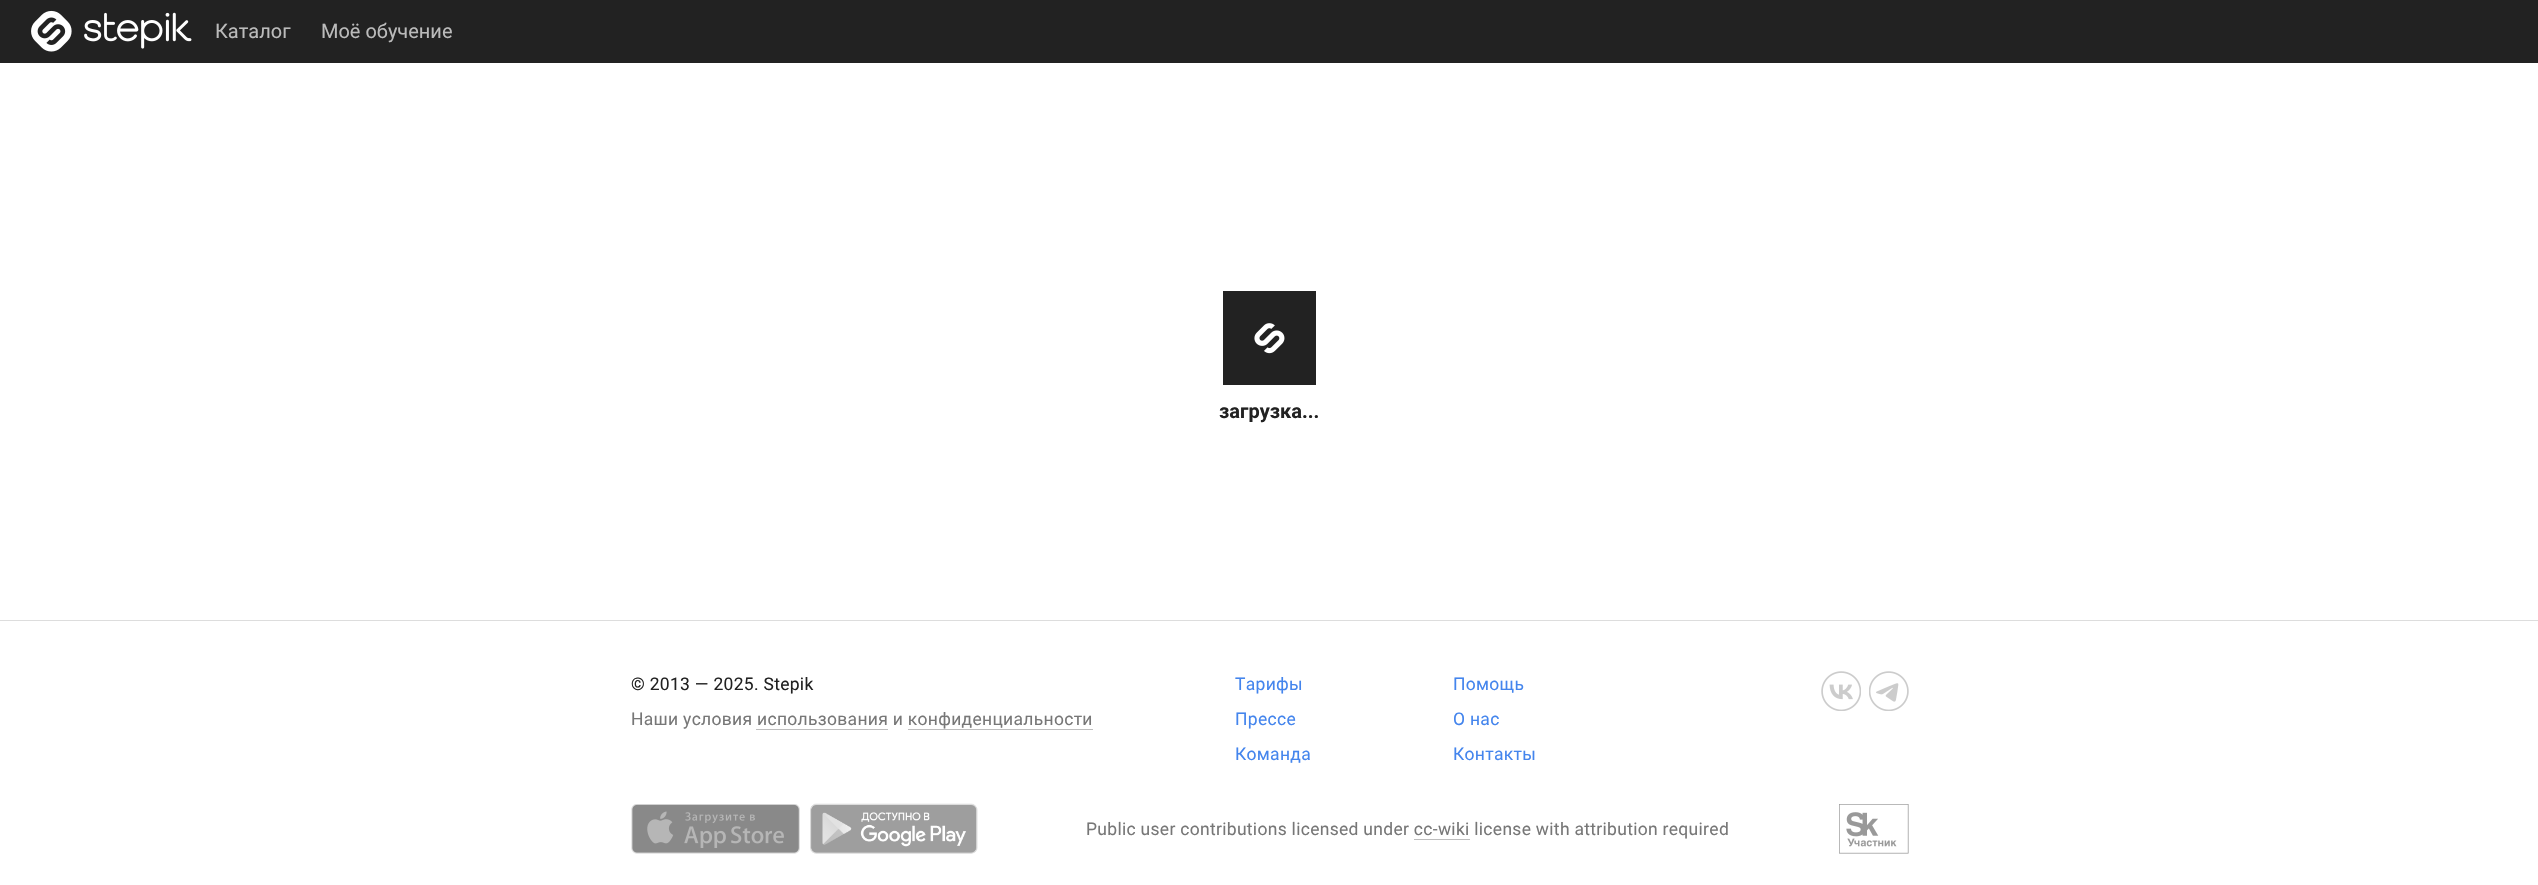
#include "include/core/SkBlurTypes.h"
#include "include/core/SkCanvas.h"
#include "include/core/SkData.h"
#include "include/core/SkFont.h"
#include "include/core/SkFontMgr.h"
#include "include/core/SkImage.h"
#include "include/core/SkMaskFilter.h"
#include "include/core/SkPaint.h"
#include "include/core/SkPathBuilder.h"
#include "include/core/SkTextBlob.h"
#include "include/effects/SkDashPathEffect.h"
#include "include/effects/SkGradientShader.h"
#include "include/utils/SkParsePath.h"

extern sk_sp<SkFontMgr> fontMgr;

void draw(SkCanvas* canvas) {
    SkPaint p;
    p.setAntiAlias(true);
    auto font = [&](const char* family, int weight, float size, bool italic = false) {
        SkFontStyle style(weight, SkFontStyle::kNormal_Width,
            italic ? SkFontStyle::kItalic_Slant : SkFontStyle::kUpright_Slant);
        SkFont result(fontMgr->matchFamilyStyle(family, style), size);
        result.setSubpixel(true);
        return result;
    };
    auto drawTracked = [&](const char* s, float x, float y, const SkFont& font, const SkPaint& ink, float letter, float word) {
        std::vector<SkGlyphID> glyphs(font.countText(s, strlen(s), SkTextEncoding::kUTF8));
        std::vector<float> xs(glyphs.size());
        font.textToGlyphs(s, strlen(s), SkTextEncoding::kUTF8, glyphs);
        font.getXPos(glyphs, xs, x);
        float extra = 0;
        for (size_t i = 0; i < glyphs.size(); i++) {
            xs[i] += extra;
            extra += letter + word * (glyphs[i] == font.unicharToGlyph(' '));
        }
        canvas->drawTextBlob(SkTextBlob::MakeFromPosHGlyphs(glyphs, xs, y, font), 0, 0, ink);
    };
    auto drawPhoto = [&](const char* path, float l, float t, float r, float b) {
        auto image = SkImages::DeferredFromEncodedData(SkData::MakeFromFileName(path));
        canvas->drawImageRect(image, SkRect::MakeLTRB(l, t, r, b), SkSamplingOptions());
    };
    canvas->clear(0xFFFFFFFF);
    p.setColor(0xFF222222);
    canvas->drawRect(SkRect::MakeLTRB(0, 0, 2538, 63), p);
    drawPhoto("media/1.png", 31, 10, 192, 52);
    auto font1 = font("Roboto", 400, 20);
    p.setColor(0xFFBBBBBB);
    canvas->drawString("Каталог", 215, 38, font1, p);
    canvas->drawString("Моё обучение", 321, 38, font1, p);
    p.setColor(0xFF222222);
    canvas->drawRect(SkRect::MakeLTRB(1223, 291, 1316, 385), p);
    drawPhoto("media/2.png", 1254, 323, 1285, 354);
    auto font2 = font("Roboto", 700, 20);
    canvas->drawString("загрузка...", 1219, 418, font2, p);
    p.setColor(0xFFDDDDDD);
    canvas->drawRect(SkRect::MakeLTRB(0, 620, 2538, 621), p);
    auto font3 = font("Roboto", 400, 17.5f);
    p.setColor(0xFF222222);
    drawTracked("© 2013 — 2025. Stepik", 631, 690, font3, p, 0.3f, 0);
    p.setColor(0xFF777777);
    drawTracked("Наши условия использования и конфиденциальности", 631, 725, font3, p, 0.3f, 0);
    p.setColor(0xFFBDBDBD);
    canvas->drawRect(SkRect::MakeLTRB(756, 729, 888, 730), p);
    canvas->drawRect(SkRect::MakeLTRB(908, 729, 1093, 730), p);
    p.setColor(0xFF4485ED);
    {
        const struct { const char* s; float x, y; } items[] = {
            {"Тарифы", 1235, 690},
            {"Прессе", 1235, 725},
            {"Команда", 1235, 760},
            {"Помощь", 1453, 690},
            {"О нас", 1453, 725},
            {"Контакты", 1453, 760},
        };
        for (auto [s, x, y] : items) {
            drawTracked(s, x, y, font3, p, 0.3f, 0);
        }
    }
    drawPhoto("media/3.png", 1821, 671, 1861, 711);
    drawPhoto("media/4.png", 1869, 671, 1909, 711);
    drawPhoto("media/5.png", 631, 804, 800, 854);
    drawPhoto("media/6.png", 810, 803, 978, 854);
    p.setColor(0xFF777777);
    drawTracked("Public user contributions licensed under cc-wiki license with attribution required", 1086, 835, font3, p, 0.3f, 0);
    p.setColor(0xFFBDBDBD);
    canvas->drawRect(SkRect::MakeLTRB(1414, 839, 1470, 840), p);
    drawPhoto("media/7.png", 1839, 804, 1909, 854);
}
